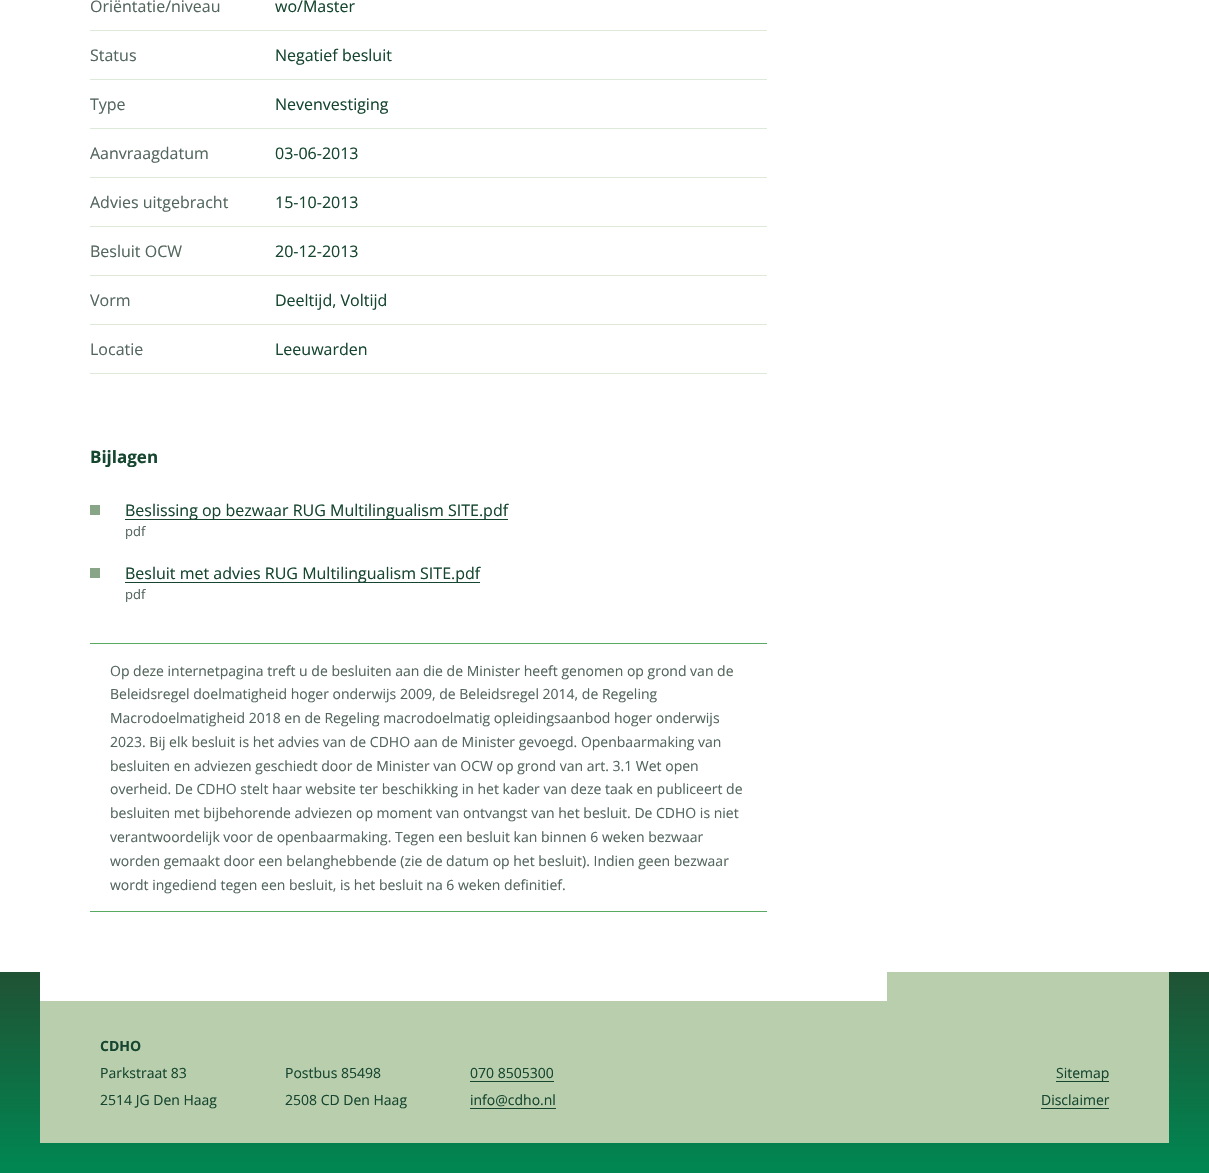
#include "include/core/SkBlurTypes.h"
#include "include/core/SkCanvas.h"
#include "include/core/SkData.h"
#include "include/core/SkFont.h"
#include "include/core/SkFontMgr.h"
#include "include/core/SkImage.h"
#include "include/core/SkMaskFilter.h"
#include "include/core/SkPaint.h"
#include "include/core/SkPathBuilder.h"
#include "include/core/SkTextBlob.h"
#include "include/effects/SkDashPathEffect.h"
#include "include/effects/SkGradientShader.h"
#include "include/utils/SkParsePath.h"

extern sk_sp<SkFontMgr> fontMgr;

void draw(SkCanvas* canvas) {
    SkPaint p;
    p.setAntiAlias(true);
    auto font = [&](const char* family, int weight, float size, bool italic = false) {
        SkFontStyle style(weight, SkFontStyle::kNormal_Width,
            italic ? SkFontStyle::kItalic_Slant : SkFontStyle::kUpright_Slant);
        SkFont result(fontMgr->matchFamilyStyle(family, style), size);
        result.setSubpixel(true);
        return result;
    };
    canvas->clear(0xFFFFFFFF);
    p.setColor(0xFFDEE9DA);
    canvas->drawRect(SkRect::MakeLTRB(90, 30, 767, 31), p);
    auto font1 = font("Open Sans", 400, 16);
    p.setColor(0xFF53665D);
    canvas->drawString("Oriëntatie/niveau", 90, 12, font1, p);
    p.setColor(0xFF164630);
    canvas->drawString("wo/Master", 275, 12, font1, p);
    p.setColor(0xFFDEE9DA);
    canvas->drawRect(SkRect::MakeLTRB(90, 79, 767, 80), p);
    p.setColor(0xFF53665D);
    canvas->drawString("Status", 90, 61, font1, p);
    p.setColor(0xFF164630);
    canvas->drawString("Negatief besluit", 275, 61, font1, p);
    p.setColor(0xFFDEE9DA);
    canvas->drawRect(SkRect::MakeLTRB(90, 128, 767, 129), p);
    p.setColor(0xFF53665D);
    canvas->drawString("Type", 90, 110, font1, p);
    p.setColor(0xFF164630);
    canvas->drawString("Nevenvestiging", 275, 110, font1, p);
    p.setColor(0xFFDEE9DA);
    canvas->drawRect(SkRect::MakeLTRB(90, 177, 767, 178), p);
    p.setColor(0xFF53665D);
    canvas->drawString("Aanvraagdatum", 90, 159, font1, p);
    p.setColor(0xFF164630);
    canvas->drawString("03-06-2013", 275, 159, font1, p);
    p.setColor(0xFFDEE9DA);
    canvas->drawRect(SkRect::MakeLTRB(90, 226, 767, 227), p);
    p.setColor(0xFF53665D);
    canvas->drawString("Advies uitgebracht", 90, 208, font1, p);
    p.setColor(0xFF164630);
    canvas->drawString("15-10-2013", 275, 208, font1, p);
    p.setColor(0xFFDEE9DA);
    canvas->drawRect(SkRect::MakeLTRB(90, 275, 767, 276), p);
    p.setColor(0xFF53665D);
    canvas->drawString("Besluit OCW", 90, 257, font1, p);
    p.setColor(0xFF164630);
    canvas->drawString("20-12-2013", 275, 257, font1, p);
    p.setColor(0xFFDEE9DA);
    canvas->drawRect(SkRect::MakeLTRB(90, 324, 767, 325), p);
    p.setColor(0xFF53665D);
    canvas->drawString("Vorm", 90, 306, font1, p);
    p.setColor(0xFF164630);
    canvas->drawString("Deeltijd, Voltijd", 275, 306, font1, p);
    p.setColor(0xFFDEE9DA);
    canvas->drawRect(SkRect::MakeLTRB(90, 373, 767, 374), p);
    p.setColor(0xFF53665D);
    canvas->drawString("Locatie", 90, 355, font1, p);
    p.setColor(0xFF164630);
    canvas->drawString("Leeuwarden", 275, 355, font1, p);
    auto font2 = font("Open Sans", 700, 17);
    canvas->drawString("Bijlagen", 90, 463, font2, p);
    p.setColor(0xFF88A587);
    canvas->drawRect(SkRect::MakeLTRB(90, 505, 100, 515), p);
    p.setColor(0xFF164630);
    canvas->drawRect(SkRect::MakeLTRB(125, 519, 508, 520), p);
    canvas->drawString("Beslissing op bezwaar RUG Multilingualism SITE.pdf", 125, 516, font1, p);
    auto font3 = font("Open Sans", 400, 13);
    p.setColor(0xFF53665D);
    canvas->drawString("pdf", 125, 536, font3, p);
    p.setColor(0xFF88A587);
    canvas->drawRect(SkRect::MakeLTRB(90, 568, 100, 578), p);
    p.setColor(0xFF164630);
    canvas->drawRect(SkRect::MakeLTRB(125, 582, 480, 583), p);
    canvas->drawString("Besluit met advies RUG Multilingualism SITE.pdf", 125, 579, font1, p);
    p.setColor(0xFF53665D);
    canvas->drawString("pdf", 125, 599, font3, p);
    p.setColor(0xFF58A962);
    canvas->drawRect(SkRect::MakeLTRB(90, 643, 767, 644), p);
    canvas->drawRect(SkRect::MakeLTRB(90, 911, 767, 912), p);
    auto font4 = font("Open Sans", 400, 14);
    p.setColor(0xFF53665D);
    {
        const struct { const char* s; float x, y; } items[] = {
            {"Op deze internetpagina treft u de besluiten aan die de Minister heeft genomen op grond van de", 110, 676},
            {"Beleidsregel doelmatigheid hoger onderwijs 2009, de Beleidsregel 2014, de Regeling", 110, 699},
            {"Macrodoelmatigheid 2018 en de Regeling macrodoelmatig opleidingsaanbod hoger onderwijs", 110, 723},
            {"2023. Bij elk besluit is het advies van de CDHO aan de Minister gevoegd. Openbaarmaking van", 110, 747},
            {"besluiten en adviezen geschiedt door de Minister van OCW op grond van art. 3.1 Wet open", 110, 771},
            {"overheid. De CDHO stelt haar website ter beschikking in het kader van deze taak en publiceert de", 110, 794},
            {"besluiten met bijbehorende adviezen op moment van ontvangst van het besluit. De CDHO is niet", 110, 818},
            {"verantwoordelijk voor de openbaarmaking. Tegen een besluit kan binnen 6 weken bezwaar", 110, 842},
            {"worden gemaakt door een belanghebbende (zie de datum op het besluit). Indien geen bezwaar", 110, 866},
            {"wordt ingediend tegen een besluit, is het besluit na 6 weken definitief.", 110, 890},
        };
        for (auto [s, x, y] : items) {
            canvas->drawString(s, x, y, font4, p);
        }
    }
    {
        const SkColor colors[] = {0xFF205234, 0xFF008752};
        const float stops[] = {0, 0.99f};
        const SkPoint ends[] = {{605, 972}, {605, 1173}};
        p.setShader(SkGradientShader::MakeLinear(ends, colors, stops, 2, SkTileMode::kClamp));
        p.setAlpha(255);
    }
    canvas->drawRect(SkRect::MakeLTRB(0, 972, 1209, 1173), p);
    p.setShader(nullptr);
    p.setColor(0xFFB9CEAC);
    canvas->drawRect(SkRect::MakeLTRB(40, 972, 1169, 1143), p);
    p.setColor(0xFFFFFFFF);
    canvas->drawRect(SkRect::MakeLTRB(40, 972, 887, 1001), p);
    auto font5 = font("Open Sans", 700, 14);
    p.setColor(0xFF164630);
    canvas->drawString("CDHO", 100, 1051, font5, p);
    {
        const struct { const char* s; float x, y; } items[] = {
            {"Parkstraat 83", 100, 1078},
            {"2514 JG Den Haag", 100, 1105},
            {"Postbus 85498", 285, 1078},
            {"2508 CD Den Haag", 285, 1105},
            {"070 8505300", 470, 1078},
        };
        for (auto [s, x, y] : items) {
            canvas->drawString(s, x, y, font4, p);
        }
    }
    canvas->drawRect(SkRect::MakeLTRB(470, 1081, 554, 1082), p);
    canvas->drawString("info@cdho.nl", 470, 1105, font4, p);
    canvas->drawRect(SkRect::MakeLTRB(470, 1108, 556, 1109), p);
    canvas->drawRect(SkRect::MakeLTRB(1056, 1081, 1109, 1082), p);
    canvas->drawString("Sitemap", 1056, 1078, font4, p);
    canvas->drawString("Disclaimer", 1041, 1105, font4, p);
    canvas->drawRect(SkRect::MakeLTRB(1041, 1108, 1109, 1109), p);
}
